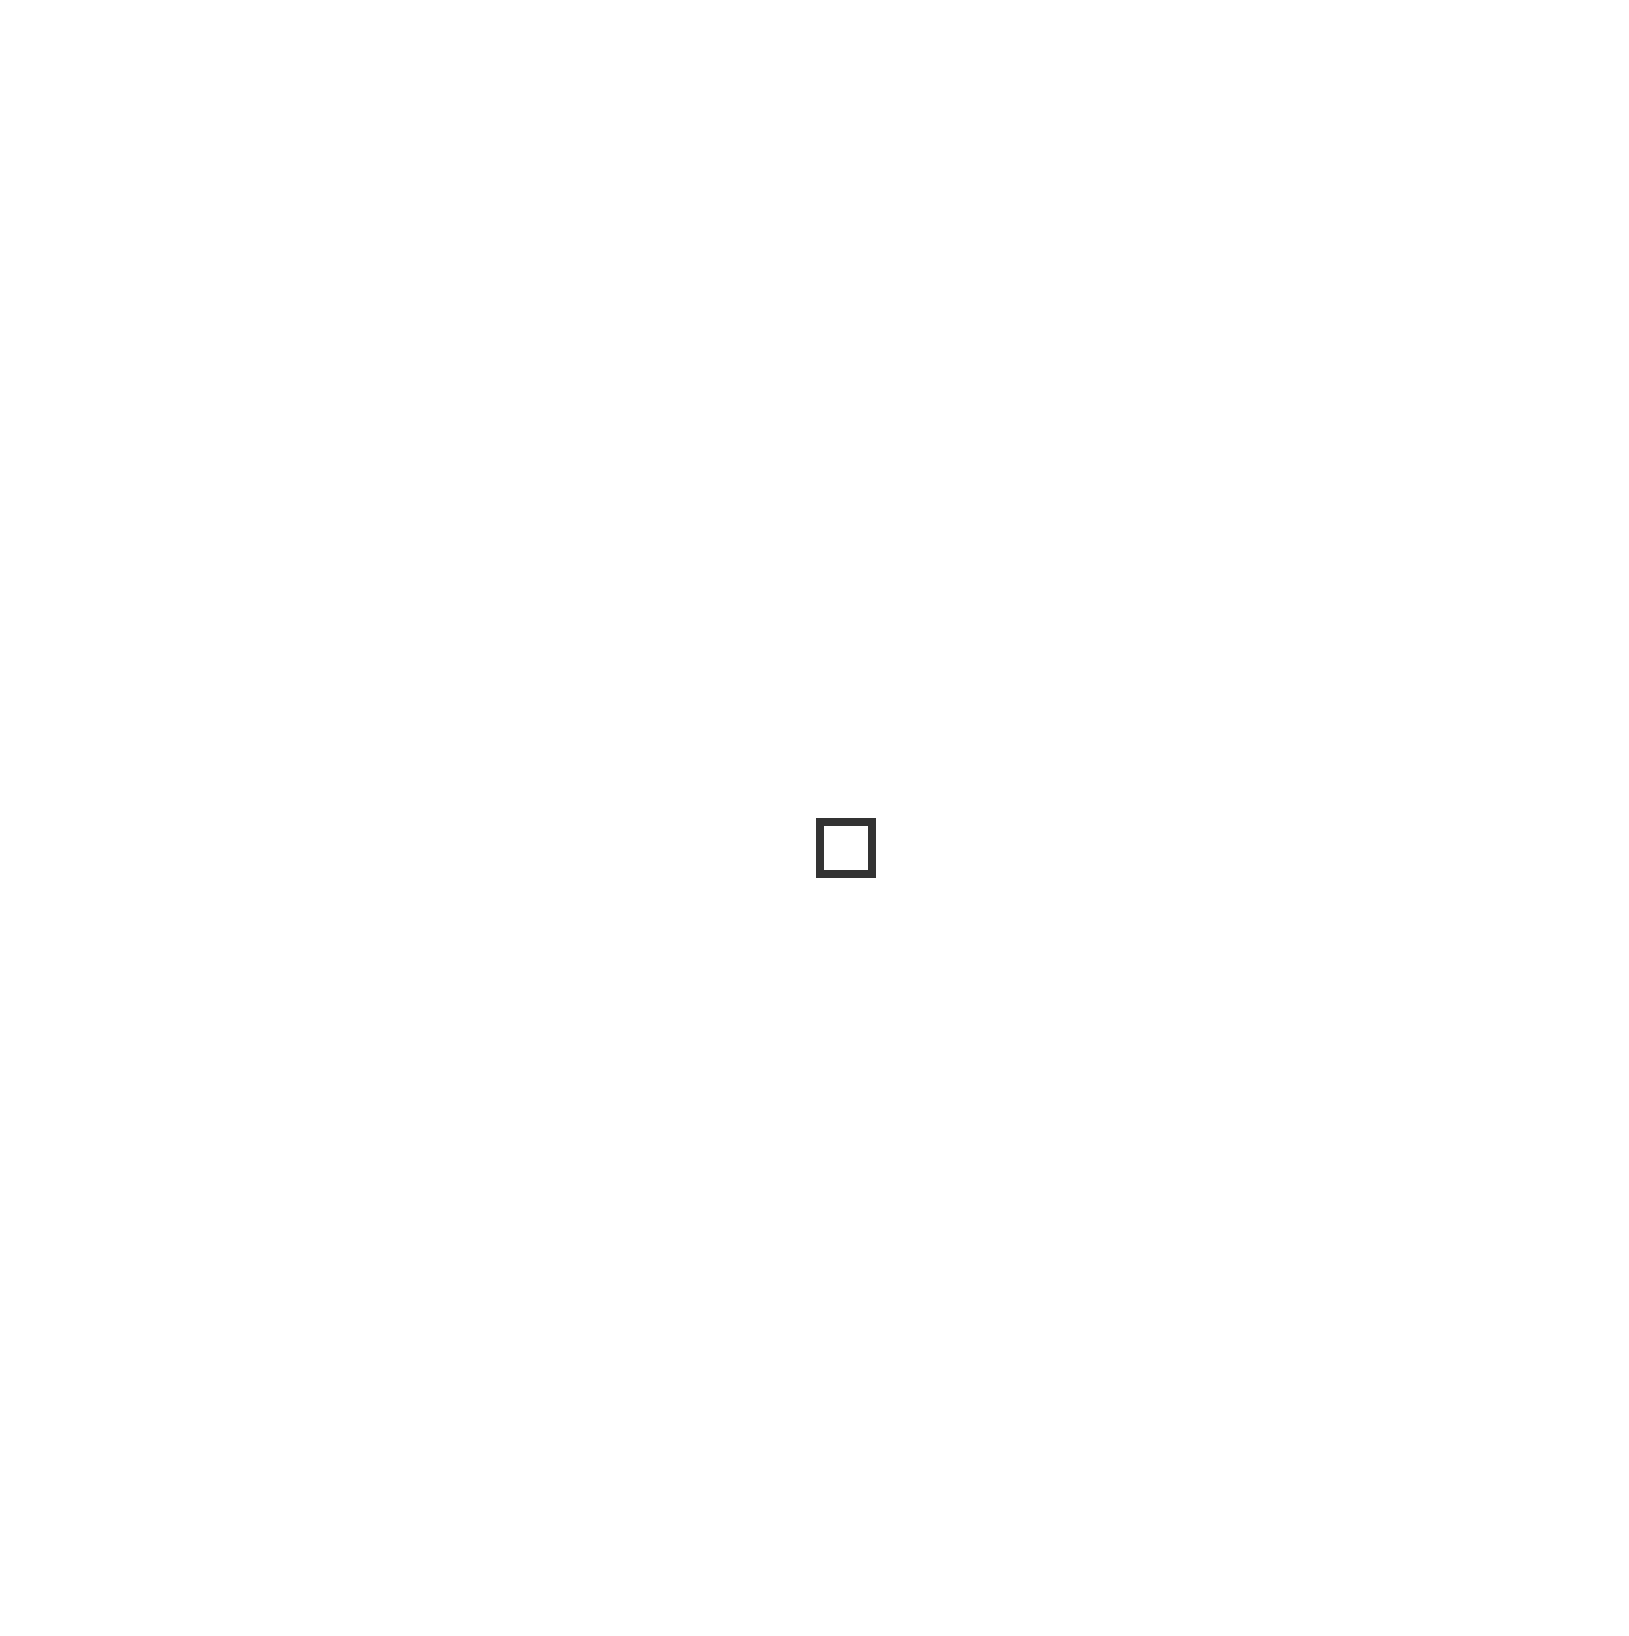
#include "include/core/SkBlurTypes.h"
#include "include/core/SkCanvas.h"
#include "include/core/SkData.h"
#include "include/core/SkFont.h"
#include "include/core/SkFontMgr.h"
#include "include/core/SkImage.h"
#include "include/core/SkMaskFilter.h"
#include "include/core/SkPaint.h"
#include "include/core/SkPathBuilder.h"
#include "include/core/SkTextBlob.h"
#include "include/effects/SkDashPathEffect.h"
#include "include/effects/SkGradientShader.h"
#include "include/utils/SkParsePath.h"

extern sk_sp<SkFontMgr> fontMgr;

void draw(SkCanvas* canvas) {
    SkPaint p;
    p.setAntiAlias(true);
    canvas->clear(0xFFFFFFFF);
    p.setStyle(SkPaint::kStroke_Style);
    p.setStrokeWidth(8);
    p.setColor(0xFF333333);
    canvas->drawRect(SkRect::MakeLTRB(820, 822, 872, 874), p);
}
